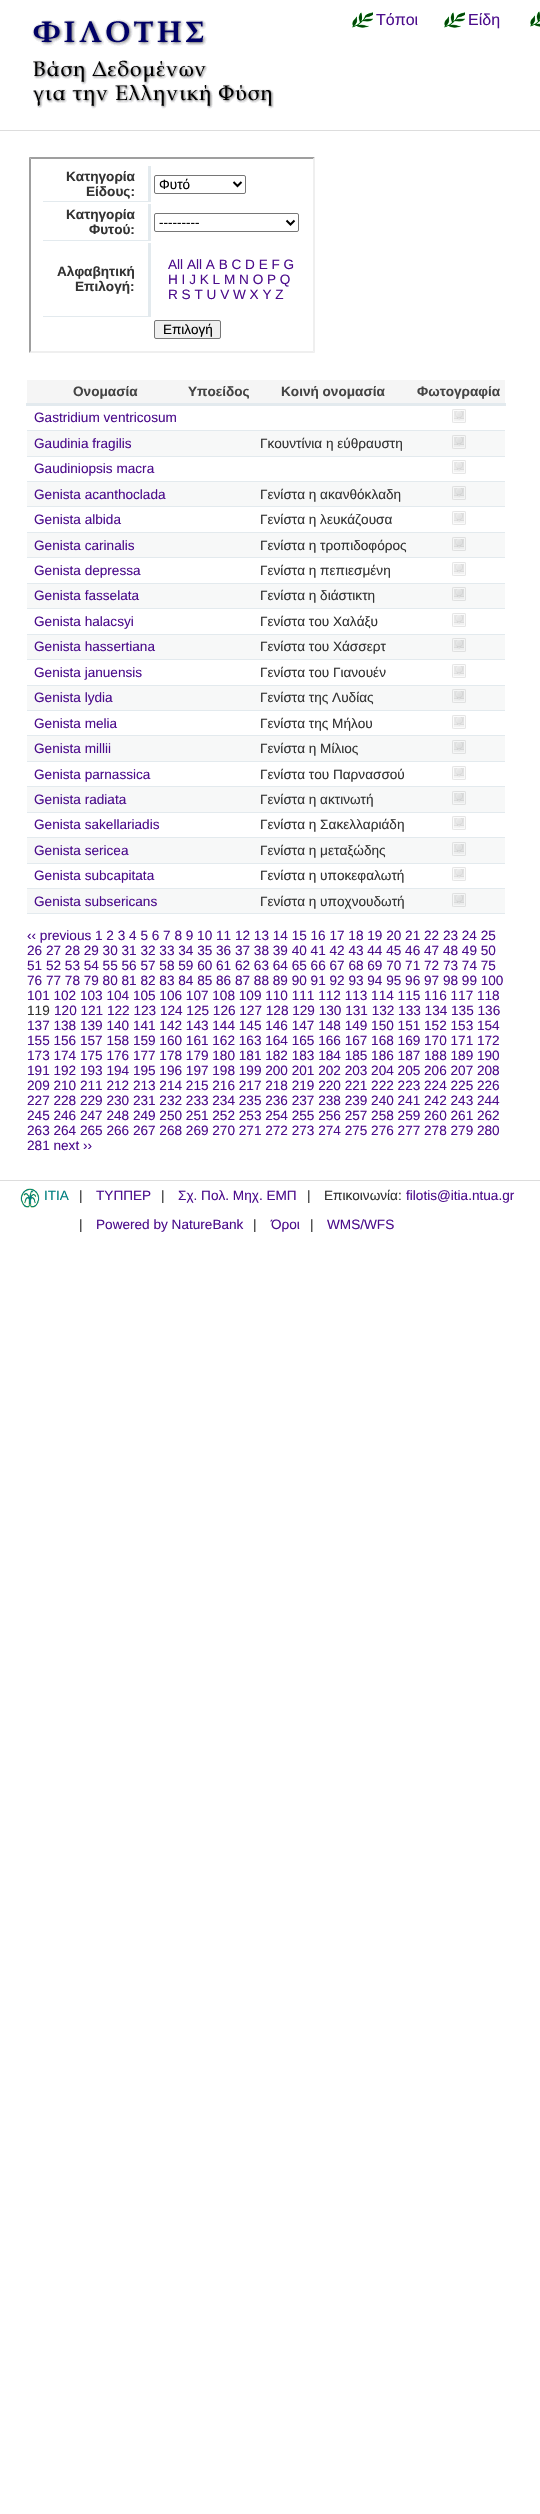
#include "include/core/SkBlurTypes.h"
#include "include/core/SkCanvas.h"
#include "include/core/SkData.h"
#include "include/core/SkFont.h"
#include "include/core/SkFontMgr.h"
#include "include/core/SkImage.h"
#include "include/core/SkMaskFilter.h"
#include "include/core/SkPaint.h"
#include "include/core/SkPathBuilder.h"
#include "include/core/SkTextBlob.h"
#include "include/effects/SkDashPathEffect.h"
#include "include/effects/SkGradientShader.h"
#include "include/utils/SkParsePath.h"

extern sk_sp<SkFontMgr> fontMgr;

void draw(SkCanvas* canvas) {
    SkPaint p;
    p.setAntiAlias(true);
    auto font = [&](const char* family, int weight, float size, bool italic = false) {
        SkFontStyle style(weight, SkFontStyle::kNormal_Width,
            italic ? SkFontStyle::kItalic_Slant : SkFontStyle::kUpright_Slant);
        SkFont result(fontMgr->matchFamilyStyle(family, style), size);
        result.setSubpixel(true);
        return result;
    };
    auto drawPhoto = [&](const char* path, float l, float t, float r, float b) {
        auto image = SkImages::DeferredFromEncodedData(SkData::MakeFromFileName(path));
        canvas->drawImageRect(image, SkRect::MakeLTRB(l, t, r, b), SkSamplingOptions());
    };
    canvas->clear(0xFFFFFFFF);
    p.setColor(0xFFDDDDDD);
    canvas->drawRect(SkRect::MakeLTRB(0, 130, 540, 131), p);
    drawPhoto("media/1.png", 32, 19, 274, 109);
    drawPhoto("media/2.png", 352, 12, 373, 28);
    auto font1 = font("Liberation Sans", 400, 16);
    p.setColor(0xFF4C0D8C);
    canvas->drawString("Τόποι", 376, 25, font1, p);
    drawPhoto("media/2.png", 444, 12, 465, 28);
    canvas->drawString("Είδη", 468, 25, font1, p);
    drawPhoto("media/3.png", 530, 11, 540, 27);
    p.setColor(0xFF9F9F9F);
    canvas->drawPath(SkPathBuilder().moveTo(29, 157).lineTo(315, 157).lineTo(313, 159).lineTo(31, 159).close().detach(), p);
    p.setColor(0xFFEFEFEF);
    canvas->drawPath(SkPathBuilder().moveTo(315, 157).lineTo(315, 353).lineTo(313, 351).lineTo(313, 159).close().detach(), p);
    canvas->drawPath(SkPathBuilder().moveTo(315, 353).lineTo(29, 353).lineTo(31, 351).lineTo(313, 351).close().detach(), p);
    p.setColor(0xFF9F9F9F);
    canvas->drawPath(SkPathBuilder().moveTo(29, 353).lineTo(29, 157).lineTo(31, 159).lineTo(31, 351).close().detach(), p);
    p.setColor(0xFFE3EAEE);
    canvas->drawRect(SkRect::MakeLTRB(148, 166, 151, 202), p);
    canvas->drawRect(SkRect::MakeLTRB(43, 201, 151, 202), p);
    auto font2 = font("Liberation Sans", 700, 13.6f);
    p.setColor(0xFF333333);
    canvas->drawString("Κατηγορία", 66, 181, font2, p);
    canvas->drawString("Είδους:", 86, 196, font2, p);
    p.setStyle(SkPaint::kStroke_Style);
    p.setStrokeWidth(1);
    p.setColor(0xFF767676);
    canvas->drawRoundRect(SkRect::MakeLTRB(154.5f, 175.5f, 245.5f, 193.5f), 1.5f, 1.5f, p);
    p.setStrokeWidth(2);
    p.setColor(0xFF000000);
    canvas->drawPath(SkPathBuilder().moveTo(233.5f, 182).lineTo(237.5f, 186).lineTo(241.5f, 182).detach(), p);
    auto font3 = font("Liberation Sans", 400, 13.5f);
    p.setStyle(SkPaint::kFill_Style);
    canvas->drawString("Φυτό", 159, 189, font3, p);
    p.setColor(0xFFE3EAEE);
    canvas->drawRect(SkRect::MakeLTRB(148, 204, 151, 241), p);
    canvas->drawRect(SkRect::MakeLTRB(43, 240, 151, 241), p);
    p.setColor(0xFF333333);
    canvas->drawString("Κατηγορία", 66, 219, font2, p);
    canvas->drawString("Φυτού:", 89, 234, font2, p);
    p.setStyle(SkPaint::kStroke_Style);
    p.setStrokeWidth(1);
    p.setColor(0xFF767676);
    canvas->drawRoundRect(SkRect::MakeLTRB(154.5f, 213.5f, 298.5f, 231.5f), 1.5f, 1.5f, p);
    p.setStrokeWidth(2);
    p.setColor(0xFF000000);
    canvas->drawPath(SkPathBuilder().moveTo(286.5f, 220.5f).lineTo(290.5f, 224.5f).lineTo(294.5f, 220.5f).detach(), p);
    p.setStyle(SkPaint::kFill_Style);
    canvas->drawString("---------", 159, 227, font3, p);
    p.setColor(0xFFE3EAEE);
    canvas->drawRect(SkRect::MakeLTRB(148, 243, 151, 317), p);
    canvas->drawRect(SkRect::MakeLTRB(43, 316, 151, 317), p);
    p.setColor(0xFF333333);
    canvas->drawString("Αλφαβητική", 57, 276, font2, p);
    canvas->drawString("Επιλογή:", 75, 291, font2, p);
    auto font4 = font("Liberation Sans", 400, 13.6f);
    p.setColor(0xFF4C0D8C);
    {
        const struct { const char* s; float x, y; } items[] = {
            {"All All A B C D E F G", 168, 269},
            {"H I J K L M N O P Q", 168, 284},
            {"R S T U V W X Y Z", 168, 299},
        };
        for (auto [s, x, y] : items) {
            canvas->drawString(s, x, y, font4, p);
        }
    }
    p.setColor(0xFFEFEFEF);
    canvas->drawRoundRect(SkRect::MakeLTRB(154.5f, 320.5f, 220.5f, 338.5f), 1.5f, 1.5f, p);
    p.setStyle(SkPaint::kStroke_Style);
    p.setStrokeWidth(1);
    p.setColor(0xFF767676);
    canvas->drawRoundRect(SkRect::MakeLTRB(154.5f, 320.5f, 220.5f, 338.5f), 1.5f, 1.5f, p);
    p.setStyle(SkPaint::kFill_Style);
    p.setColor(0xFF000000);
    canvas->drawString("Επιλογή", 163, 334, font3, p);
    p.setColor(0xFFF5F5F5);
    canvas->drawRect(SkRect::MakeLTRB(27, 380, 505, 403), p);
    p.setColor(0xFF444444);
    {
        const struct { const char* s; float x, y; } items[] = {
            {"Ονομασία", 73, 396},
            {"Υποείδος", 188, 396},
            {"Κοινή ονομασία", 281, 396},
        };
        for (auto [s, x, y] : items) {
            canvas->drawString(s, x, y, font2, p);
        }
    }
    p.setColor(0xFFE3EAEE);
    canvas->drawRect(SkRect::MakeLTRB(26, 403, 506, 406), p);
    p.setColor(0xFF444444);
    canvas->drawString("Φωτογραφία", 417, 396, font2, p);
    p.setColor(0xFFE3EAEE);
    canvas->drawRect(SkRect::MakeLTRB(27, 430, 505, 431), p);
    drawPhoto("media/4.png", 452, 409, 466, 423);
    p.setColor(0xFF4C0D8C);
    canvas->drawString("Gastridium ventricosum", 34, 422, font4, p);
    p.setColor(0xFFE3EAEE);
    canvas->drawRect(SkRect::MakeLTRB(27, 456, 505, 457), p);
    p.setColor(0xFFF7F8F8);
    canvas->drawRect(SkRect::MakeLTRB(27, 431, 505, 456), p);
    drawPhoto("media/5.png", 452, 435, 466, 449);
    p.setColor(0xFF4C0D8C);
    canvas->drawString("Gaudinia fragilis", 34, 448, font4, p);
    p.setColor(0xFF333333);
    canvas->drawString("Γκουντίνια η εύθραυστη", 260, 448, font4, p);
    p.setColor(0xFFE3EAEE);
    canvas->drawRect(SkRect::MakeLTRB(27, 481, 505, 482), p);
    drawPhoto("media/4.png", 452, 460, 466, 474);
    p.setColor(0xFF4C0D8C);
    canvas->drawString("Gaudiniopsis macra", 34, 473, font4, p);
    p.setColor(0xFFE3EAEE);
    canvas->drawRect(SkRect::MakeLTRB(27, 506, 505, 507), p);
    p.setColor(0xFFF7F8F8);
    canvas->drawRect(SkRect::MakeLTRB(27, 482, 505, 506), p);
    drawPhoto("media/5.png", 452, 486, 466, 500);
    p.setColor(0xFF4C0D8C);
    canvas->drawString("Genista acanthoclada", 34, 499, font4, p);
    p.setColor(0xFF333333);
    canvas->drawString("Γενίστα η ακανθόκλαδη", 260, 499, font4, p);
    p.setColor(0xFFE3EAEE);
    canvas->drawRect(SkRect::MakeLTRB(27, 532, 505, 533), p);
    drawPhoto("media/4.png", 452, 511, 466, 525);
    p.setColor(0xFF4C0D8C);
    canvas->drawString("Genista albida", 34, 524, font4, p);
    p.setColor(0xFF333333);
    canvas->drawString("Γενίστα η λευκάζουσα", 260, 524, font4, p);
    p.setColor(0xFFE3EAEE);
    canvas->drawRect(SkRect::MakeLTRB(27, 557, 505, 558), p);
    p.setColor(0xFFF7F8F8);
    canvas->drawRect(SkRect::MakeLTRB(27, 533, 505, 557), p);
    drawPhoto("media/5.png", 452, 537, 466, 551);
    p.setColor(0xFF4C0D8C);
    canvas->drawString("Genista carinalis", 34, 550, font4, p);
    p.setColor(0xFF333333);
    canvas->drawString("Γενίστα η τροπιδοφόρος", 260, 550, font4, p);
    p.setColor(0xFFE3EAEE);
    canvas->drawRect(SkRect::MakeLTRB(27, 583, 505, 584), p);
    drawPhoto("media/4.png", 452, 562, 466, 576);
    p.setColor(0xFF4C0D8C);
    canvas->drawString("Genista depressa", 34, 575, font4, p);
    p.setColor(0xFF333333);
    canvas->drawString("Γενίστα η πεπιεσμένη", 260, 575, font4, p);
    p.setColor(0xFFE3EAEE);
    canvas->drawRect(SkRect::MakeLTRB(27, 608, 505, 609), p);
    p.setColor(0xFFF7F8F8);
    canvas->drawRect(SkRect::MakeLTRB(27, 584, 505, 608), p);
    drawPhoto("media/5.png", 452, 587, 466, 601);
    p.setColor(0xFF4C0D8C);
    canvas->drawString("Genista fasselata", 34, 600, font4, p);
    p.setColor(0xFF333333);
    canvas->drawString("Γενίστα η διάστικτη", 260, 600, font4, p);
    p.setColor(0xFFE3EAEE);
    canvas->drawRect(SkRect::MakeLTRB(27, 634, 505, 635), p);
    drawPhoto("media/4.png", 452, 613, 466, 627);
    p.setColor(0xFF4C0D8C);
    canvas->drawString("Genista halacsyi", 34, 626, font4, p);
    p.setColor(0xFF333333);
    canvas->drawString("Γενίστα του Χαλάξυ", 260, 626, font4, p);
    p.setColor(0xFFE3EAEE);
    canvas->drawRect(SkRect::MakeLTRB(27, 659, 505, 660), p);
    p.setColor(0xFFF7F8F8);
    canvas->drawRect(SkRect::MakeLTRB(27, 635, 505, 659), p);
    drawPhoto("media/5.png", 452, 638, 466, 652);
    p.setColor(0xFF4C0D8C);
    canvas->drawString("Genista hassertiana", 34, 651, font4, p);
    p.setColor(0xFF333333);
    canvas->drawString("Γενίστα του Χάσσερτ", 260, 651, font4, p);
    p.setColor(0xFFE3EAEE);
    canvas->drawRect(SkRect::MakeLTRB(27, 685, 505, 686), p);
    drawPhoto("media/4.png", 452, 664, 466, 678);
    p.setColor(0xFF4C0D8C);
    canvas->drawString("Genista januensis", 34, 677, font4, p);
    p.setColor(0xFF333333);
    canvas->drawString("Γενίστα του Γιανουέν", 260, 677, font4, p);
    p.setColor(0xFFE3EAEE);
    canvas->drawRect(SkRect::MakeLTRB(27, 710, 505, 711), p);
    p.setColor(0xFFF7F8F8);
    canvas->drawRect(SkRect::MakeLTRB(27, 686, 505, 710), p);
    drawPhoto("media/5.png", 452, 689, 466, 703);
    p.setColor(0xFF4C0D8C);
    canvas->drawString("Genista lydia", 34, 702, font4, p);
    p.setColor(0xFF333333);
    canvas->drawString("Γενίστα της Λυδίας", 260, 702, font4, p);
    p.setColor(0xFFE3EAEE);
    canvas->drawRect(SkRect::MakeLTRB(27, 735, 505, 736), p);
    drawPhoto("media/4.png", 452, 715, 466, 729);
    p.setColor(0xFF4C0D8C);
    canvas->drawString("Genista melia", 34, 728, font4, p);
    p.setColor(0xFF333333);
    canvas->drawString("Γενίστα της Μήλου", 260, 728, font4, p);
    p.setColor(0xFFE3EAEE);
    canvas->drawRect(SkRect::MakeLTRB(27, 761, 505, 762), p);
    p.setColor(0xFFF7F8F8);
    canvas->drawRect(SkRect::MakeLTRB(27, 736, 505, 761), p);
    drawPhoto("media/5.png", 452, 740, 466, 754);
    p.setColor(0xFF4C0D8C);
    canvas->drawString("Genista millii", 34, 753, font4, p);
    p.setColor(0xFF333333);
    canvas->drawString("Γενίστα η Μίλιος", 260, 753, font4, p);
    p.setColor(0xFFE3EAEE);
    canvas->drawRect(SkRect::MakeLTRB(27, 786, 505, 787), p);
    drawPhoto("media/4.png", 452, 766, 466, 780);
    p.setColor(0xFF4C0D8C);
    canvas->drawString("Genista parnassica", 34, 779, font4, p);
    p.setColor(0xFF333333);
    canvas->drawString("Γενίστα του Παρνασσού", 260, 779, font4, p);
    p.setColor(0xFFE3EAEE);
    canvas->drawRect(SkRect::MakeLTRB(27, 812, 505, 813), p);
    p.setColor(0xFFF7F8F8);
    canvas->drawRect(SkRect::MakeLTRB(27, 787, 505, 812), p);
    drawPhoto("media/5.png", 452, 791, 466, 805);
    p.setColor(0xFF4C0D8C);
    canvas->drawString("Genista radiata", 34, 804, font4, p);
    p.setColor(0xFF333333);
    canvas->drawString("Γενίστα η ακτινωτή", 260, 804, font4, p);
    p.setColor(0xFFE3EAEE);
    canvas->drawRect(SkRect::MakeLTRB(27, 837, 505, 838), p);
    drawPhoto("media/4.png", 452, 816, 466, 830);
    p.setColor(0xFF4C0D8C);
    canvas->drawString("Genista sakellariadis", 34, 829, font4, p);
    p.setColor(0xFF333333);
    canvas->drawString("Γενίστα η Σακελλαριάδη", 260, 829, font4, p);
    p.setColor(0xFFE3EAEE);
    canvas->drawRect(SkRect::MakeLTRB(27, 863, 505, 864), p);
    p.setColor(0xFFF7F8F8);
    canvas->drawRect(SkRect::MakeLTRB(27, 838, 505, 863), p);
    drawPhoto("media/5.png", 452, 842, 466, 856);
    p.setColor(0xFF4C0D8C);
    canvas->drawString("Genista sericea", 34, 855, font4, p);
    p.setColor(0xFF333333);
    canvas->drawString("Γενίστα η μεταξώδης", 260, 855, font4, p);
    p.setColor(0xFFE3EAEE);
    canvas->drawRect(SkRect::MakeLTRB(27, 888, 505, 889), p);
    drawPhoto("media/4.png", 452, 867, 466, 881);
    p.setColor(0xFF4C0D8C);
    canvas->drawString("Genista subcapitata", 34, 880, font4, p);
    p.setColor(0xFF333333);
    canvas->drawString("Γενίστα η υποκεφαλωτή", 260, 880, font4, p);
    p.setColor(0xFFE3EAEE);
    canvas->drawRect(SkRect::MakeLTRB(27, 913, 505, 914), p);
    p.setColor(0xFFF7F8F8);
    canvas->drawRect(SkRect::MakeLTRB(27, 889, 505, 913), p);
    drawPhoto("media/5.png", 452, 893, 466, 907);
    p.setColor(0xFF4C0D8C);
    canvas->drawString("Genista subsericans", 34, 906, font4, p);
    p.setColor(0xFF333333);
    canvas->drawString("Γενίστα η υποχνουδωτή", 260, 906, font4, p);
    p.setColor(0xFF4C0D8C);
    {
        const struct { const char* s; float x, y; } items[] = {
            {"‹‹ previous 1 2 3 4 5 6 7 8 9 10 11 12 13 14 15 16 17 18 19 20 21 22 23 24 25", 27, 940},
            {"26 27 28 29 30 31 32 33 34 35 36 37 38 39 40 41 42 43 44 45 46 47 48 49 50", 27, 955},
            {"51 52 53 54 55 56 57 58 59 60 61 62 63 64 65 66 67 68 69 70 71 72 73 74 75", 27, 970},
            {"76 77 78 79 80 81 82 83 84 85 86 87 88 89 90 91 92 93 94 95 96 97 98 99 100", 27, 985},
            {"101 102 103 104 105 106 107 108 109 110 111 112 113 114 115 116 117 118", 27, 1000},
        };
        for (auto [s, x, y] : items) {
            canvas->drawString(s, x, y, font4, p);
        }
    }
    p.setColor(0xFF333333);
    canvas->drawString("119", 27, 1015, font4, p);
    p.setColor(0xFF4C0D8C);
    {
        const struct { const char* s; float x, y; } items[] = {
            {"120 121 122 123 124 125 126 127 128 129 130 131 132 133 134 135 136", 54, 1015},
            {"137 138 139 140 141 142 143 144 145 146 147 148 149 150 151 152 153 154", 27, 1030},
            {"155 156 157 158 159 160 161 162 163 164 165 166 167 168 169 170 171 172", 27, 1045},
            {"173 174 175 176 177 178 179 180 181 182 183 184 185 186 187 188 189 190", 27, 1060},
            {"191 192 193 194 195 196 197 198 199 200 201 202 203 204 205 206 207 208", 27, 1075},
            {"209 210 211 212 213 214 215 216 217 218 219 220 221 222 223 224 225 226", 27, 1090},
            {"227 228 229 230 231 232 233 234 235 236 237 238 239 240 241 242 243 244", 27, 1105},
            {"245 246 247 248 249 250 251 252 253 254 255 256 257 258 259 260 261 262", 27, 1120},
            {"263 264 265 266 267 268 269 270 271 272 273 274 275 276 277 278 279 280", 27, 1135},
            {"281 next ››", 27, 1150},
        };
        for (auto [s, x, y] : items) {
            canvas->drawString(s, x, y, font4, p);
        }
    }
    p.setColor(0xFFDDDDDD);
    canvas->drawRect(SkRect::MakeLTRB(0, 1180, 540, 1181), p);
    drawPhoto("media/6.png", 20, 1188, 40, 1208);
    p.setColor(0xFF007F7F);
    canvas->drawString("ITIA", 44, 1200, font4, p);
    p.setColor(0xFF333333);
    canvas->drawString("|", 79, 1200, font4, p);
    p.setColor(0xFF4C0D8C);
    canvas->drawString("ΤΥΠΠΕΡ", 96, 1200, font4, p);
    p.setColor(0xFF333333);
    canvas->drawString("|", 161, 1200, font4, p);
    p.setColor(0xFF4C0D8C);
    canvas->drawString("Σχ. Πολ. Μηχ. ΕΜΠ", 178, 1200, font4, p);
    p.setColor(0xFF333333);
    canvas->drawString("|", 307, 1200, font4, p);
    canvas->drawString("Επικοινωνία:", 324, 1200, font4, p);
    p.setColor(0xFF4C0D8C);
    canvas->drawString("filotis@itia.ntua.gr", 406, 1200, font4, p);
    p.setColor(0xFF333333);
    canvas->drawString("|", 79, 1229, font4, p);
    p.setColor(0xFF4C0D8C);
    canvas->drawString("Powered by NatureBank", 96, 1229, font4, p);
    p.setColor(0xFF333333);
    canvas->drawString("|", 253, 1229, font4, p);
    p.setColor(0xFF4C0D8C);
    canvas->drawString("Όροι", 271, 1229, font4, p);
    p.setColor(0xFF333333);
    canvas->drawString("|", 310, 1229, font4, p);
    p.setColor(0xFF4C0D8C);
    canvas->drawString("WMS/WFS", 327, 1229, font4, p);
}
